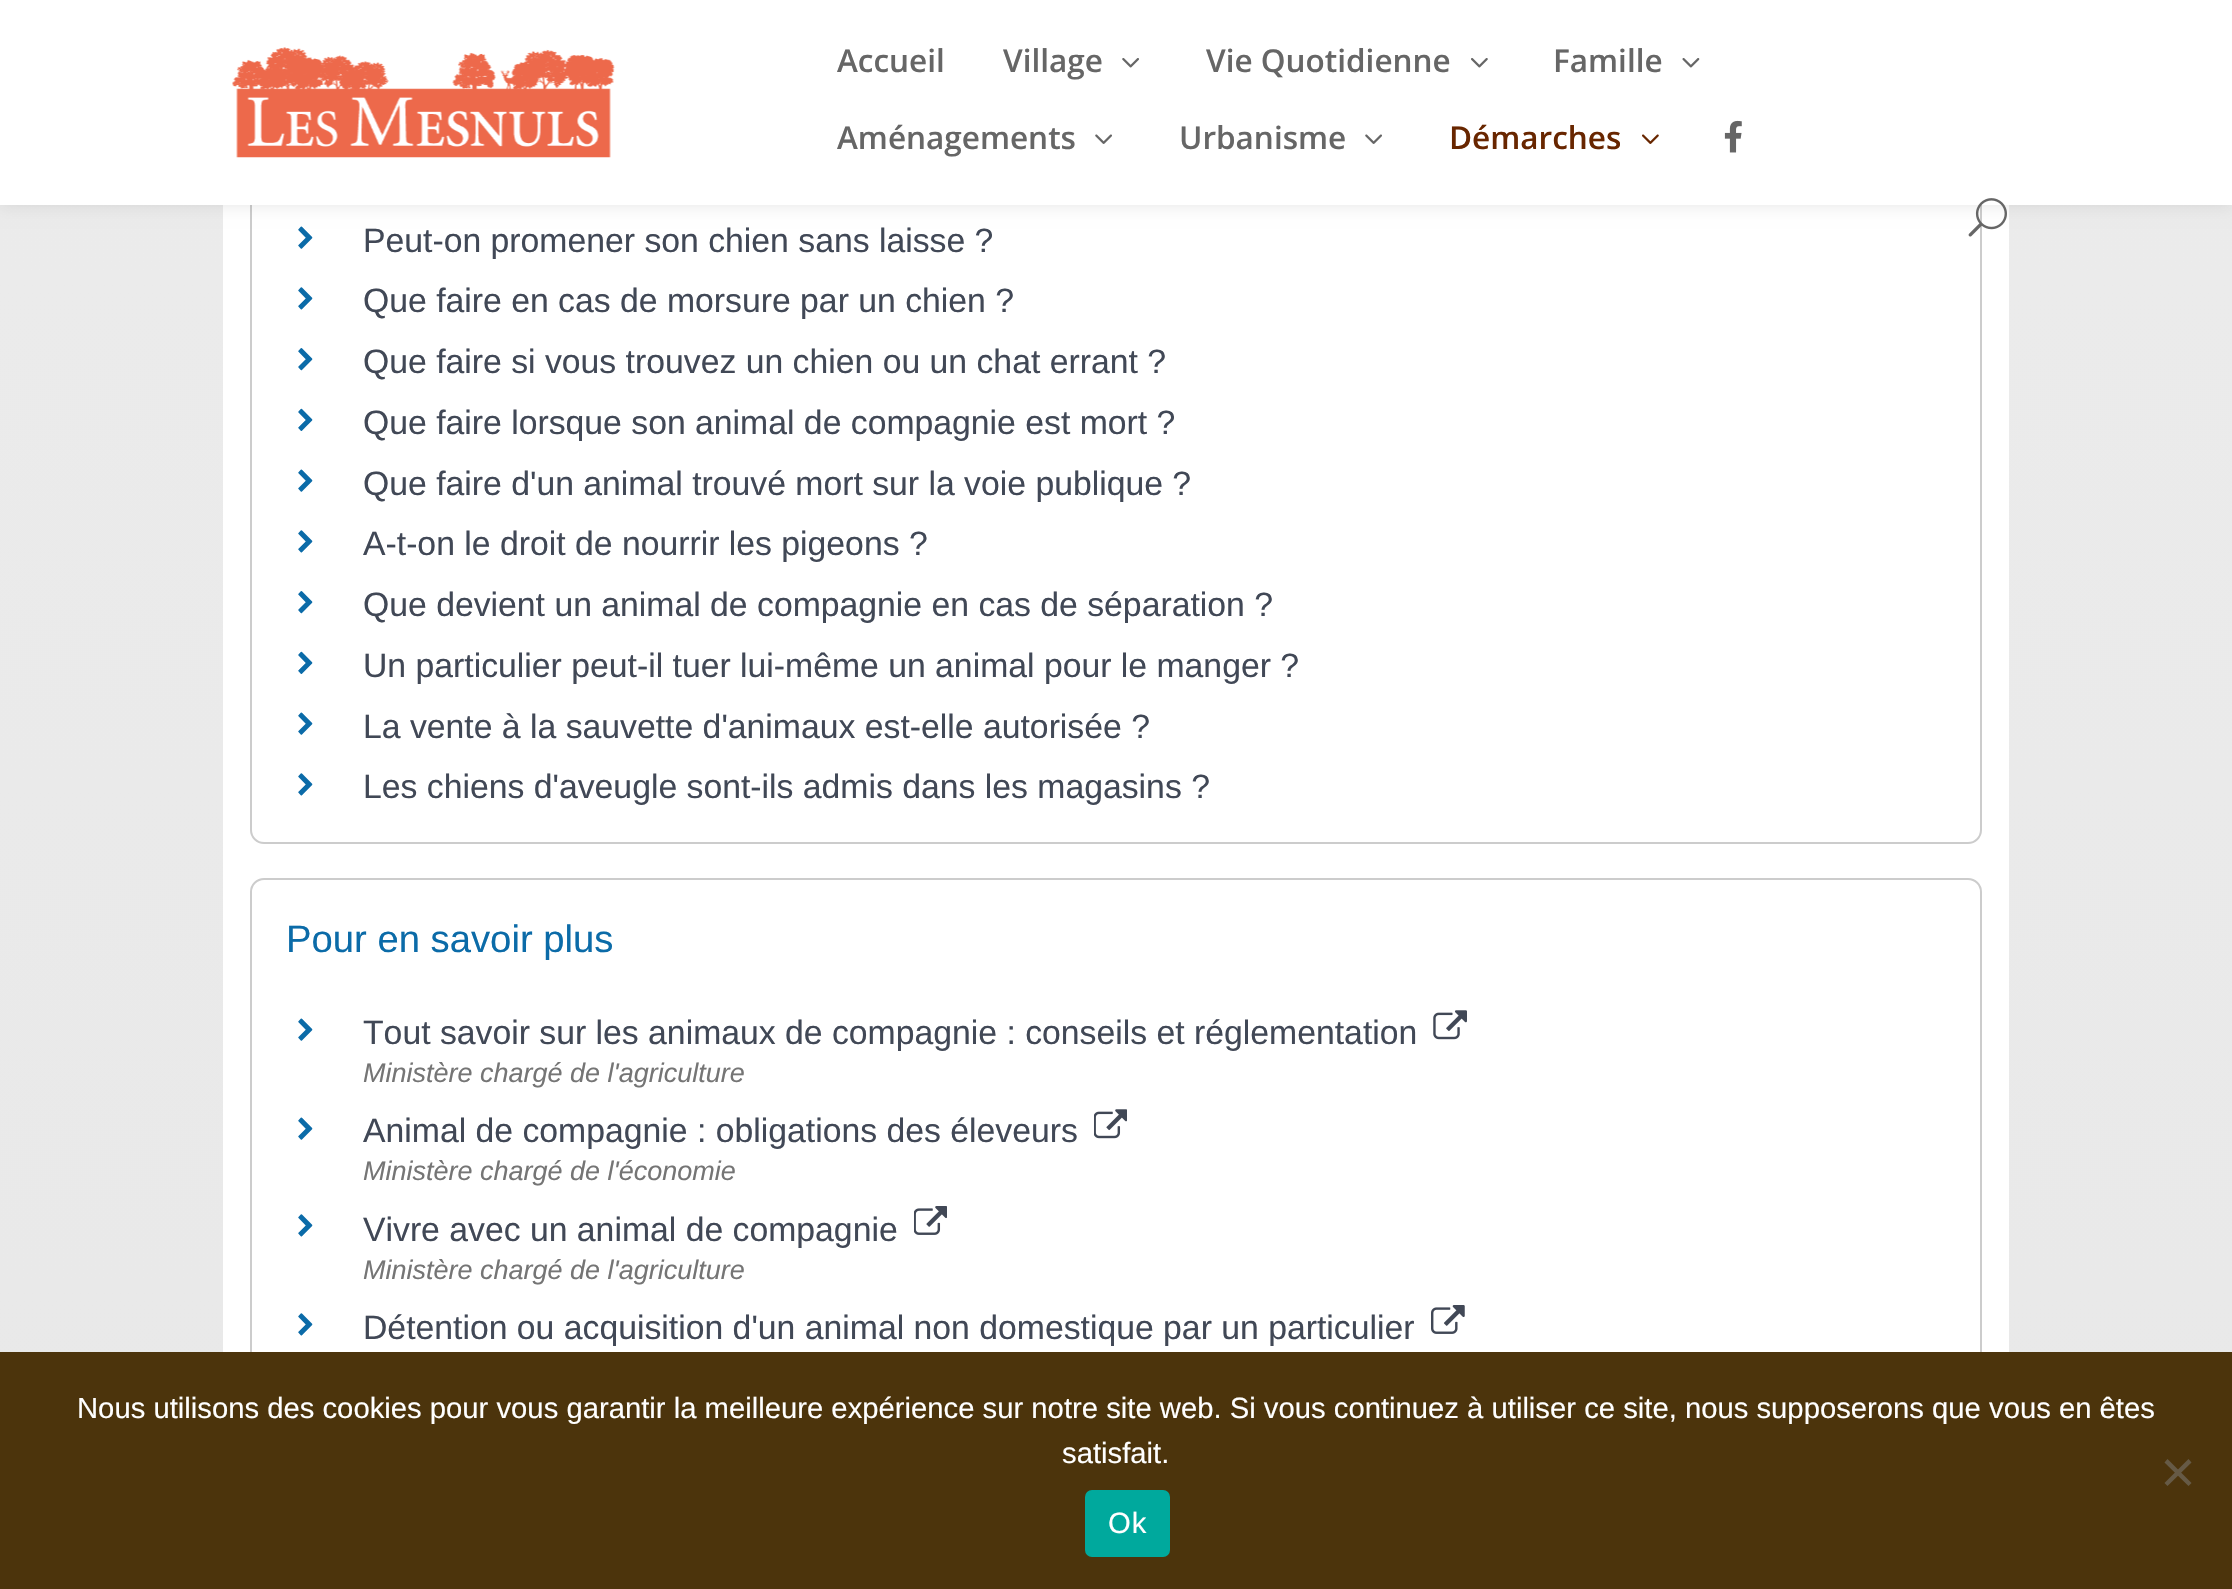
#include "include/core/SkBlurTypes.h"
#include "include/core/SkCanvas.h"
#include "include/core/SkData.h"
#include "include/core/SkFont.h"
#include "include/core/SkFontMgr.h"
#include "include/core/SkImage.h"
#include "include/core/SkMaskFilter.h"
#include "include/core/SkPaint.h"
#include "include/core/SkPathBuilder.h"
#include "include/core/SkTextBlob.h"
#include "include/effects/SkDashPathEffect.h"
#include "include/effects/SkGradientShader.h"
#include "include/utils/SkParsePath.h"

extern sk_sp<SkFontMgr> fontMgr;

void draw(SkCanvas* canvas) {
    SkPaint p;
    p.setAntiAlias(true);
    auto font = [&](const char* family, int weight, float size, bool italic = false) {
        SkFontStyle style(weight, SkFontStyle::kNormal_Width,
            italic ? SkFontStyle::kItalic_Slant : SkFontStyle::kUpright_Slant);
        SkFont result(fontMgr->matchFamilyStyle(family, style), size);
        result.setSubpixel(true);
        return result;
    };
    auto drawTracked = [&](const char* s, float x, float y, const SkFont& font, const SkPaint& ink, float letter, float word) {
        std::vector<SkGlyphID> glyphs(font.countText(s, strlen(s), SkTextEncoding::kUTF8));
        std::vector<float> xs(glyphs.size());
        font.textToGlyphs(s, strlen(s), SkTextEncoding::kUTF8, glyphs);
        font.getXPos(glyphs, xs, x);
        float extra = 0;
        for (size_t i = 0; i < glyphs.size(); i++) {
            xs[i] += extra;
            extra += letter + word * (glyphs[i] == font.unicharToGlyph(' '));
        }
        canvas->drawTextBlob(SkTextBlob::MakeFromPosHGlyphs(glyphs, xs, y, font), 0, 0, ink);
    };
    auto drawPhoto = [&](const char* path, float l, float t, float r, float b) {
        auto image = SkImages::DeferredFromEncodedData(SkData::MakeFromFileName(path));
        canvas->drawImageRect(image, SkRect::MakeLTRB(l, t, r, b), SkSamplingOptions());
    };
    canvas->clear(0xFFFFFFFF);
    drawPhoto("media/9.png", 0, 205, 2232, 1352);
    p.setColor(0xFFFFFFFF);
    canvas->drawRect(SkRect::MakeLTRB(223, 205, 2009, 1352), p);
    p.setStyle(SkPaint::kStroke_Style);
    p.setStrokeWidth(2);
    p.setColor(0xFFCCCCCC);
    canvas->drawRoundRect(SkRect::MakeLTRB(251, -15, 1981, 843), 13, 13, p);
    drawPhoto("media/10.png", 298, 226, 313, 249);
    p.setStyle(SkPaint::kFill_Style);
    p.setColor(0x1A000000);
    p.setMaskFilter(SkMaskFilter::MakeBlur(kNormal_SkBlurStyle, 8));
    canvas->drawRect(SkRect::MakeLTRB(0, 0, 2232, 205), p);
    p.setMaskFilter(nullptr);
    p.setColor(0xFFFFFFFF);
    canvas->drawRect(SkRect::MakeLTRB(0, 0, 2232, 205), p);
    drawPhoto("media/1.png", 232, 47, 615, 158);
    auto font1 = font("Open Sans", 600, 31.5f);
    p.setColor(0xFF666666);
    canvas->drawString("Accueil", 837, 72, font1, p);
    canvas->drawString("Village", 1003, 72, font1, p);
    drawPhoto("media/2.png", 1122, 58, 1139, 68);
    canvas->drawString("Vie Quotidienne", 1206, 72, font1, p);
    drawPhoto("media/3.png", 1471, 58, 1488, 68);
    canvas->drawString("Famille", 1553, 72, font1, p);
    drawPhoto("media/4.png", 1682, 58, 1700, 68);
    canvas->drawString("Aménagements", 837, 149, font1, p);
    drawPhoto("media/5.png", 1095, 134, 1112, 144);
    canvas->drawString("Urbanisme", 1179, 149, font1, p);
    drawPhoto("media/5.png", 1365, 134, 1382, 144);
    p.setColor(0xFF682600);
    canvas->drawString("Démarches", 1449, 149, font1, p);
    drawPhoto("media/6.png", 1642, 134, 1659, 144);
    drawPhoto("media/7.png", 1724, 120, 1742, 153);
    drawPhoto("media/8.png", 1968, 198, 2007, 237);
    auto font2 = font("Liberation Sans", 400, 33.75f);
    p.setColor(0xFF414856);
    canvas->drawString("Peut-on promener son chien sans laisse ?", 363, 252, font2, p);
    drawPhoto("media/11.png", 298, 287, 313, 310);
    canvas->drawString("Que faire en cas de morsure par un chien ?", 363, 312, font2, p);
    drawPhoto("media/12.png", 298, 348, 313, 371);
    canvas->drawString("Que faire si vous trouvez un chien ou un chat errant ?", 363, 373, font2, p);
    drawPhoto("media/13.png", 298, 408, 313, 431);
    canvas->drawString("Que faire lorsque son animal de compagnie est mort ?", 363, 434, font2, p);
    drawPhoto("media/10.png", 298, 469, 313, 492);
    canvas->drawString("Que faire d'un animal trouvé mort sur la voie publique ?", 363, 495, font2, p);
    drawPhoto("media/11.png", 298, 530, 313, 553);
    canvas->drawString("A-t-on le droit de nourrir les pigeons ?", 363, 555, font2, p);
    drawPhoto("media/12.png", 298, 591, 313, 614);
    canvas->drawString("Que devient un animal de compagnie en cas de séparation ?", 363, 616, font2, p);
    drawPhoto("media/14.png", 298, 651, 313, 674);
    canvas->drawString("Un particulier peut-il tuer lui-même un animal pour le manger ?", 363, 677, font2, p);
    drawPhoto("media/10.png", 298, 712, 313, 735);
    canvas->drawString("La vente à la sauvette d'animaux est-elle autorisée ?", 363, 738, font2, p);
    drawPhoto("media/11.png", 298, 773, 313, 796);
    canvas->drawString("Les chiens d'aveugle sont-ils admis dans les magasins ?", 363, 798, font2, p);
    p.setStyle(SkPaint::kStroke_Style);
    p.setColor(0xFFCCCCCC);
    canvas->drawRoundRect(SkRect::MakeLTRB(251, 879, 1981, 1421), 13, 13, p);
    auto font3 = font("Liberation Sans", 400, 38.25f);
    p.setStyle(SkPaint::kFill_Style);
    p.setColor(0xFF0B6BA8);
    canvas->drawString("Pour en savoir plus", 286, 952, font3, p);
    drawPhoto("media/10.png", 298, 1018, 313, 1041);
    p.setColor(0xFF414856);
    canvas->drawString("Tout savoir sur les animaux de compagnie : conseils et réglementation", 363, 1044, font2, p);
    drawPhoto("media/15.png", 1433, 1010, 1467, 1040);
    auto font4 = font("Liberation Sans", 400, 27, true);
    p.setColor(0xFF757575);
    canvas->drawString("Ministère chargé de l'agriculture", 363, 1082, font4, p);
    drawPhoto("media/10.png", 298, 1117, 313, 1140);
    p.setColor(0xFF414856);
    canvas->drawString("Animal de compagnie : obligations des éleveurs", 363, 1142, font2, p);
    drawPhoto("media/16.png", 1094, 1109, 1127, 1139);
    p.setColor(0xFF757575);
    canvas->drawString("Ministère chargé de l'économie", 363, 1180, font4, p);
    drawPhoto("media/11.png", 298, 1214, 313, 1237);
    p.setColor(0xFF414856);
    canvas->drawString("Vivre avec un animal de compagnie", 363, 1241, font2, p);
    drawPhoto("media/17.png", 914, 1206, 947, 1235);
    p.setColor(0xFF757575);
    canvas->drawString("Ministère chargé de l'agriculture", 363, 1279, font4, p);
    drawPhoto("media/11.png", 298, 1313, 313, 1336);
    p.setColor(0xFF414856);
    canvas->drawString("Détention ou acquisition d'un animal non domestique par un particulier", 363, 1339, font2, p);
    drawPhoto("media/18.png", 1431, 1305, 1465, 1334);
    p.setColor(0xFF4C340C);
    canvas->drawRect(SkRect::MakeLTRB(0, 1352, 2232, 1589), p);
    auto font5 = font("Liberation Sans", 400, 29.25f);
    p.setColor(0xFFFFFFFF);
    canvas->drawString("Nous utilisons des cookies pour vous garantir la meilleure expérience sur notre site web. Si vous continuez à utiliser ce site, nous supposerons que vous en êtes", 77, 1418, font5, p);
    canvas->drawString("satisfait.", 1062, 1463, font5, p);
    p.setColor(0xFF665A46);
    canvas->drawPath(SkPathBuilder().moveTo(2188.5f, 1459).lineTo(2191.5f, 1462.5f).lineTo(2167.5f, 1486).lineTo(2164.5f, 1483).close().detach(), p);
    canvas->drawPath(SkPathBuilder().moveTo(2164.5f, 1462.5f).lineTo(2167.5f, 1459).lineTo(2191.5f, 1483).lineTo(2188.5f, 1486).close().detach(), p);
    p.setColor(0xFF00A99D);
    canvas->drawRoundRect(SkRect::MakeLTRB(1085, 1490, 1170, 1557), 7, 7, p);
    p.setColor(0xFFFFFFFF);
    drawTracked("Ok", 1108, 1533, font5, p, 1, 0);
}
